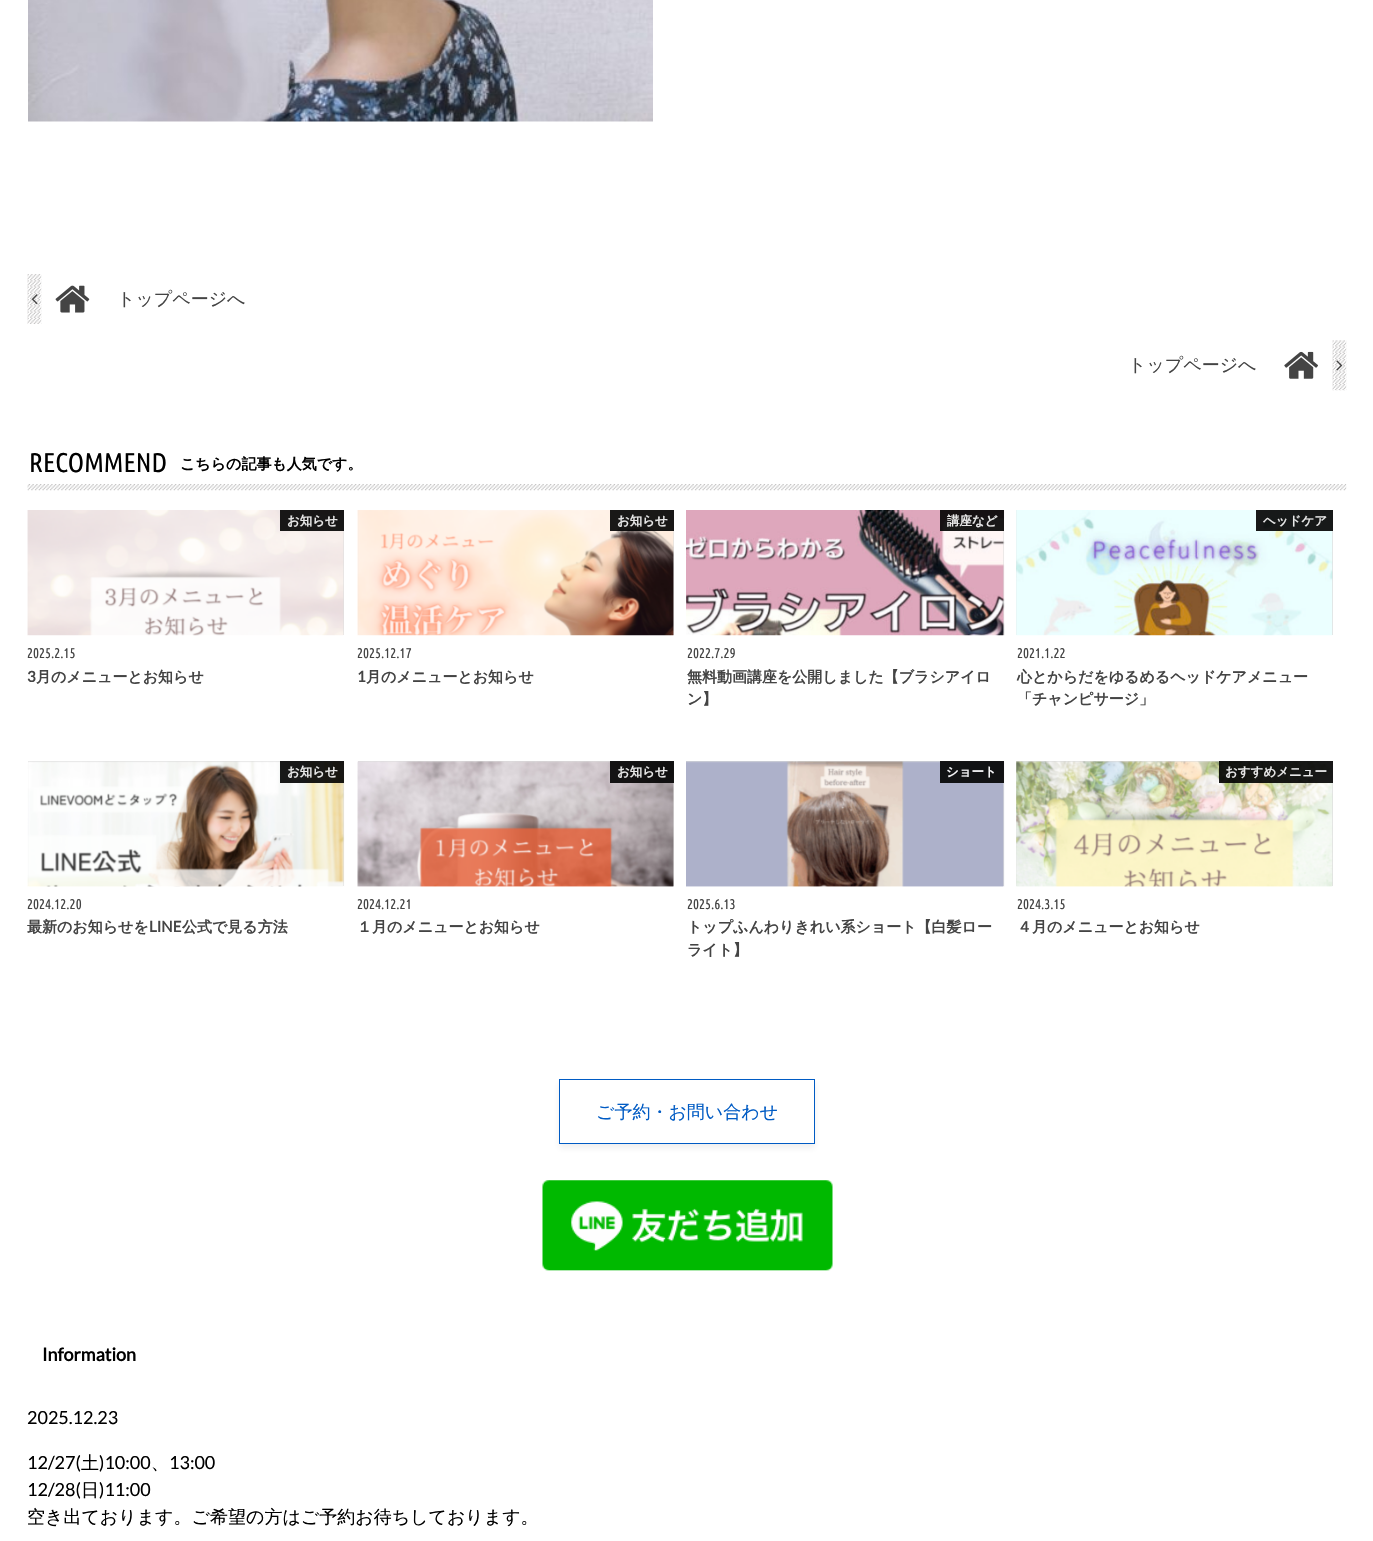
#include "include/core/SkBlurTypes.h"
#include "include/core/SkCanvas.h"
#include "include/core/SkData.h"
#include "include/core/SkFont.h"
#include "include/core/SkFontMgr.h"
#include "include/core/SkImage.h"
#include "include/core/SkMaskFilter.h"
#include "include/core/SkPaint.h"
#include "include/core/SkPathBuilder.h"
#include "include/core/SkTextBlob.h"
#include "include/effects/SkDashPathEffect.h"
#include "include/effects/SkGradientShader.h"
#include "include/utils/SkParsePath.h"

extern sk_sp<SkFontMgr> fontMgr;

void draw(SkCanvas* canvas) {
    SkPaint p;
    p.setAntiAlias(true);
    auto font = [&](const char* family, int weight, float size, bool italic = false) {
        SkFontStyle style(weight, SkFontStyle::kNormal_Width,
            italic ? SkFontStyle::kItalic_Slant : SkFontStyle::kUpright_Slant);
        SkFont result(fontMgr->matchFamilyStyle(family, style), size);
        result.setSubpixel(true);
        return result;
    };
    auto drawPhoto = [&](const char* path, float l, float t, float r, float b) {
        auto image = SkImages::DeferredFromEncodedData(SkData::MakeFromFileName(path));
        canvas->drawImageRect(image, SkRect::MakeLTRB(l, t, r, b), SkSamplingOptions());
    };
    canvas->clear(0xFFFFFFFF);
    drawPhoto("media/1.png", 28, 0, 653, 122);
    drawPhoto("media/2.png", 27, 274, 42, 324);
    drawPhoto("media/3.png", 31, 294, 38, 305);
    drawPhoto("media/4.png", 55, 285, 90, 313);
    auto font1 = font("WenQuanYi Zen Hei", 500, 18);
    p.setColor(0xFF444444);
    canvas->drawString("トップページへ", 117, 305, font1, p);
    canvas->drawString("トップページへ", 1128, 371, font1, p);
    drawPhoto("media/5.png", 1284, 351, 1318, 379);
    drawPhoto("media/6.png", 1332, 340, 1347, 391);
    drawPhoto("media/7.png", 1336, 360, 1343, 371);
    drawPhoto("media/8.png", 27, 484, 1347, 491);
    auto font2 = font("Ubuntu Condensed", 400, 27);
    p.setColor(0xFF000000);
    canvas->drawString("RECOMMEND", 29, 472, font2, p);
    auto font3 = font("WenQuanYi Zen Hei", 700, 15);
    canvas->drawString("こちらの記事も人気です。", 180, 469, font3, p);
    p.setColor(0xFFDDDDDD);
    canvas->drawRect(SkRect::MakeLTRB(28, 510, 344, 635), p);
    drawPhoto("media/9.png", 27, 510, 344, 636);
    p.setColor(0xE6000000);
    canvas->drawRect(SkRect::MakeLTRB(280, 510, 344, 531), p);
    auto font4 = font("WenQuanYi Zen Hei", 700, 12.5f);
    p.setColor(0xFFE8E8E8);
    canvas->drawString("お知らせ", 287, 525, font4, p);
    auto font5 = font("Ubuntu Condensed", 400, 14);
    p.setColor(0xFF444444);
    canvas->drawString("2025.2.15", 27, 658, font5, p);
    auto font6 = font("Lato", 700, 15);
    canvas->drawString("3", 27, 682, font6, p);
    canvas->drawString("月のメニューとお知らせ", 36, 682, font3, p);
    p.setColor(0xFFDDDDDD);
    canvas->drawRect(SkRect::MakeLTRB(358, 510, 674, 635), p);
    drawPhoto("media/10.png", 357, 510, 674, 636);
    p.setColor(0xE6000000);
    canvas->drawRect(SkRect::MakeLTRB(610, 510, 674, 531), p);
    p.setColor(0xFFE8E8E8);
    canvas->drawString("お知らせ", 617, 525, font4, p);
    p.setColor(0xFF444444);
    canvas->drawString("2025.12.17", 357, 658, font5, p);
    canvas->drawString("1", 357, 682, font6, p);
    canvas->drawString("月のメニューとお知らせ", 366, 682, font3, p);
    p.setColor(0xFFDDDDDD);
    canvas->drawRect(SkRect::MakeLTRB(1003, 510, 1004, 635), p);
    drawPhoto("media/11.png", 686, 510, 1005, 636);
    p.setColor(0xE6000000);
    canvas->drawRect(SkRect::MakeLTRB(940, 510, 1004, 531), p);
    p.setColor(0xFFE8E8E8);
    canvas->drawString("講座など", 947, 525, font4, p);
    p.setColor(0xFF444444);
    canvas->drawString("2022.7.29", 687, 658, font5, p);
    canvas->drawString("無料動画講座を公開しました【ブラシアイロ", 687, 682, font3, p);
    canvas->drawString("ン】", 687, 704, font3, p);
    p.setColor(0xFFDDDDDD);
    canvas->drawRect(SkRect::MakeLTRB(1016, 510, 1333, 635), p);
    drawPhoto("media/12.png", 1016, 510, 1333, 636);
    p.setColor(0xE6000000);
    canvas->drawRect(SkRect::MakeLTRB(1256, 510, 1333, 531), p);
    p.setColor(0xFFE8E8E8);
    canvas->drawString("ヘッドケア", 1263, 525, font4, p);
    p.setColor(0xFF444444);
    canvas->drawString("2021.1.22", 1017, 658, font5, p);
    canvas->drawString("心とからだをゆるめるヘッドケアメニュー", 1017, 682, font3, p);
    canvas->drawString("「チャンピサージ」", 1017, 704, font3, p);
    p.setColor(0xFFDDDDDD);
    canvas->drawRect(SkRect::MakeLTRB(28, 761, 344, 886), p);
    drawPhoto("media/13.png", 27, 761, 345, 887);
    p.setColor(0xE6000000);
    canvas->drawRect(SkRect::MakeLTRB(280, 761, 344, 783), p);
    p.setColor(0xFFE8E8E8);
    canvas->drawString("お知らせ", 287, 776, font4, p);
    p.setColor(0xFF444444);
    canvas->drawString("2024.12.20", 27, 909, font5, p);
    canvas->drawString("最新のお知らせを", 27, 932, font3, p);
    canvas->drawString("LINE", 149, 932, font6, p);
    canvas->drawString("公式で見る方法", 182, 932, font3, p);
    p.setColor(0xFFDDDDDD);
    canvas->drawRect(SkRect::MakeLTRB(358, 761, 674, 886), p);
    drawPhoto("media/14.png", 357, 761, 674, 887);
    p.setColor(0xE6000000);
    canvas->drawRect(SkRect::MakeLTRB(610, 761, 674, 783), p);
    p.setColor(0xFFE8E8E8);
    canvas->drawString("お知らせ", 617, 776, font4, p);
    p.setColor(0xFF444444);
    canvas->drawString("2024.12.21", 357, 909, font5, p);
    canvas->drawString("１月のメニューとお知らせ", 357, 932, font3, p);
    p.setColor(0xFFDDDDDD);
    canvas->drawRect(SkRect::MakeLTRB(686, 761, 1004, 886), p);
    drawPhoto("media/15.png", 686, 761, 1005, 887);
    p.setColor(0xE6000000);
    canvas->drawRect(SkRect::MakeLTRB(940, 761, 1004, 783), p);
    p.setColor(0xFFF7F7FA);
    canvas->drawString("ショート", 946, 776, font4, p);
    p.setColor(0xFF444444);
    canvas->drawString("2025.6.13", 687, 909, font5, p);
    canvas->drawString("トップふんわりきれい系ショート【白髪ロー", 687, 932, font3, p);
    canvas->drawString("ライト】", 687, 955, font3, p);
    p.setColor(0xFFDDDDDD);
    canvas->drawRect(SkRect::MakeLTRB(1016, 761, 1333, 886), p);
    drawPhoto("media/16.png", 1016, 761, 1333, 887);
    p.setColor(0xE6000000);
    canvas->drawRect(SkRect::MakeLTRB(1219, 761, 1333, 783), p);
    p.setColor(0xFFE8E8E8);
    canvas->drawString("おすすめメニュー", 1225, 776, font4, p);
    p.setColor(0xFF444444);
    canvas->drawString("2024.3.15", 1017, 909, font5, p);
    canvas->drawString("４月のメニューとお知らせ", 1017, 932, font3, p);
    canvas->save();
    canvas->clipPath(SkPathBuilder(SkPathFillType::kEvenOdd).moveTo(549, 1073).lineTo(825, 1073).lineTo(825, 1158).lineTo(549, 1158).close().moveTo(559, 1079).lineTo(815, 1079).lineTo(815, 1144).lineTo(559, 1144).close().detach(), true);
    p.setColor(0x142D2D2D);
    p.setMaskFilter(SkMaskFilter::MakeBlur(kNormal_SkBlurStyle, 3));
    canvas->drawRect(SkRect::MakeLTRB(559, 1083, 815, 1148), p);
    p.setMaskFilter(nullptr);
    canvas->restore();
    p.setStyle(SkPaint::kStroke_Style);
    p.setStrokeWidth(1);
    p.setColor(0xFF005BC4);
    canvas->drawRect(SkRect::MakeLTRB(559.5f, 1079.5f, 814.5f, 1143.5f), p);
    p.setStyle(SkPaint::kFill_Style);
    canvas->drawString("ご予約・お問い合わせ", 596, 1118, font1, p);
    drawPhoto("media/17.png", 542, 1180, 833, 1271);
    auto font7 = font("Lato", 700, 18);
    p.setColor(0xFF000000);
    canvas->drawString("Information", 42, 1361, font7, p);
    auto font8 = font("Lato", 400, 18);
    canvas->drawString("2025.12.23", 27, 1424, font8, p);
    canvas->drawString("12/27(", 27, 1469, font8, p);
    canvas->drawString("土", 81, 1469, font1, p);
    canvas->drawString(")10:00", 99, 1469, font8, p);
    canvas->drawString("、", 151, 1469, font1, p);
    canvas->drawString("13:00", 169, 1469, font8, p);
    canvas->drawString("12/28(", 27, 1496, font8, p);
    canvas->drawString("日", 81, 1496, font1, p);
    canvas->drawString(")11:00", 99, 1496, font8, p);
    canvas->drawString("空き出ております。ご希望の方はご予約お待ちしております。", 27, 1523, font1, p);
}
